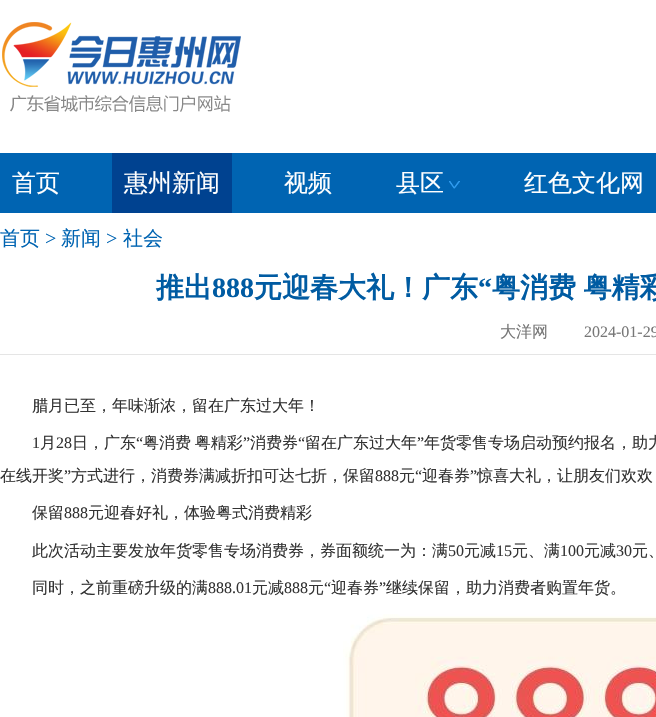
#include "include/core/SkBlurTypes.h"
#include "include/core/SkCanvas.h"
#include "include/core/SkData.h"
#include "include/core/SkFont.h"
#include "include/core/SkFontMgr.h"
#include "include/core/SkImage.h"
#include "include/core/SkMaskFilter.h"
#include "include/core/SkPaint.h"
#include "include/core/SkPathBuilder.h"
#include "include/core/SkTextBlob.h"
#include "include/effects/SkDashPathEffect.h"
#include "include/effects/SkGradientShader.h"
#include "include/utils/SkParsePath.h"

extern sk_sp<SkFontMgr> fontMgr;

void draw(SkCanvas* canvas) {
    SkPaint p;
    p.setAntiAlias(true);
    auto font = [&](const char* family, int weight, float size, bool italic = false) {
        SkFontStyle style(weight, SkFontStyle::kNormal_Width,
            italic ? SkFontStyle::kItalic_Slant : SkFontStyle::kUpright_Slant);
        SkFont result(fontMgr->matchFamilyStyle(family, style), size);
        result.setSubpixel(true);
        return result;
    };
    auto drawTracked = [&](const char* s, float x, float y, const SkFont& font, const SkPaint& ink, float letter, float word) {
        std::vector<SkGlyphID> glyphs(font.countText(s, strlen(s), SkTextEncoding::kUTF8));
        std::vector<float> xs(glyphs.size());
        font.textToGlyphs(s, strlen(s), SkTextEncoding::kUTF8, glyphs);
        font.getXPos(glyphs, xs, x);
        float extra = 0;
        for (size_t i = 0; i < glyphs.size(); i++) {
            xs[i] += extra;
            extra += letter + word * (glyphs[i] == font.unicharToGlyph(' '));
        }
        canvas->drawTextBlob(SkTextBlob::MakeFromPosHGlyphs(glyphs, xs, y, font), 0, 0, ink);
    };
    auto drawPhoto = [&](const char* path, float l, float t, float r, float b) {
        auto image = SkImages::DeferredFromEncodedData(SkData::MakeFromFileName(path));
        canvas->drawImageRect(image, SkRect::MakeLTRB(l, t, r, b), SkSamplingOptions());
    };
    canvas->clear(0xFFFFFFFF);
    drawPhoto("media/1.png", 2, 22, 241, 112);
    p.setColor(0xFF0064B2);
    canvas->drawRect(SkRect::MakeLTRB(0, 153, 656, 213), p);
    auto font1 = font("WenQuanYi Zen Hei", 500, 24);
    p.setColor(0xFFFFFFFF);
    canvas->drawString("首页", 12, 191, font1, p);
    p.setColor(0xFF004290);
    canvas->drawRect(SkRect::MakeLTRB(112, 153, 232, 213), p);
    p.setColor(0xFFFFFFFF);
    {
        const struct { const char* s; float x, y; } items[] = {
            {"惠州新闻", 124, 191},
            {"视频", 284, 191},
            {"县区", 396, 191},
        };
        for (auto [s, x, y] : items) {
            canvas->drawString(s, x, y, font1, p);
        }
    }
    drawPhoto("media/2.png", 449, 181, 460, 189);
    canvas->drawString("红色文化网", 524, 191, font1, p);
    auto font2 = font("WenQuanYi Zen Hei", 500, 20);
    p.setColor(0xFF0064B2);
    canvas->drawString("首页", 0, 245, font2, p);
    auto font3 = font("Liberation Serif", 400, 20);
    canvas->drawString(">", 45, 245, font3, p);
    canvas->drawString("新闻", 61, 245, font2, p);
    canvas->drawString(">", 106, 245, font3, p);
    canvas->drawString("社会", 123, 245, font2, p);
    auto font4 = font("WenQuanYi Zen Hei", 700, 28);
    p.setColor(0xFF005BA2);
    canvas->drawString("推出", 156, 297, font4, p);
    auto font5 = font("Liberation Serif", 700, 28);
    canvas->drawString("888", 212, 297, font5, p);
    canvas->drawString("元迎春大礼！广东", 254, 297, font4, p);
    canvas->drawString("“", 478, 297, font5, p);
    drawTracked("粤消费 粤精彩", 492, 297, font4, p, 0, -1);
    p.setColor(0xFFE5E5E5);
    canvas->drawRect(SkRect::MakeLTRB(0, 354, 656, 355), p);
    auto font6 = font("WenQuanYi Zen Hei", 500, 16);
    p.setColor(0xFF777777);
    canvas->drawString("大洋网", 500, 337, font6, p);
    auto font7 = font("Liberation Serif", 400, 16);
    canvas->drawString("2024-01-29", 584, 337, font7, p);
    p.setColor(0xFF333333);
    canvas->drawString("腊月已至，年味渐浓，留在广东过大年！", 32, 411, font6, p);
    canvas->drawString("1", 32, 448, font7, p);
    canvas->drawString("月", 40, 448, font6, p);
    canvas->drawString("28", 56, 448, font7, p);
    canvas->drawString("日，广东", 72, 448, font6, p);
    canvas->drawString("“", 136, 448, font7, p);
    drawTracked("粤消费 粤精彩", 143, 448, font6, p, 0, -1);
    canvas->drawString("”", 243, 448, font7, p);
    canvas->drawString("消费券", 250, 448, font6, p);
    canvas->drawString("“", 298, 448, font7, p);
    canvas->drawString("留在广东过大年", 305, 448, font6, p);
    canvas->drawString("”", 417, 448, font7, p);
    canvas->drawString("年货零售专场启动预约报名，助力", 424, 448, font6, p);
    canvas->drawString("在线开奖", 0, 481, font6, p);
    canvas->drawString("”", 64, 481, font7, p);
    canvas->drawString("方式进行，消费券满减折扣可达七折，保留", 71, 481, font6, p);
    canvas->drawString("888", 375, 481, font7, p);
    canvas->drawString("元", 399, 481, font6, p);
    canvas->drawString("“", 415, 481, font7, p);
    canvas->drawString("迎春券", 422, 481, font6, p);
    canvas->drawString("”", 470, 481, font7, p);
    canvas->drawString("惊喜大礼，让朋友们欢欢", 477, 481, font6, p);
    canvas->drawString("保留", 32, 518, font6, p);
    canvas->drawString("888", 64, 518, font7, p);
    canvas->drawString("元迎春好礼，体验粤式消费精彩", 88, 518, font6, p);
    canvas->drawString("此次活动主要发放年货零售专场消费券，券面额统一为：满", 32, 556, font6, p);
    canvas->drawString("50", 448, 556, font7, p);
    canvas->drawString("元减", 464, 556, font6, p);
    canvas->drawString("15", 496, 556, font7, p);
    canvas->drawString("元、满", 512, 556, font6, p);
    canvas->drawString("100", 560, 556, font7, p);
    canvas->drawString("元减", 584, 556, font6, p);
    canvas->drawString("30", 616, 556, font7, p);
    canvas->drawString("元、", 632, 556, font6, p);
    canvas->drawString("同时，之前重磅升级的满", 32, 593, font6, p);
    canvas->drawString("888.01", 208, 593, font7, p);
    canvas->drawString("元减", 252, 593, font6, p);
    canvas->drawString("888", 284, 593, font7, p);
    canvas->drawString("元", 308, 593, font6, p);
    canvas->drawString("“", 324, 593, font7, p);
    canvas->drawString("迎春券", 331, 593, font6, p);
    canvas->drawString("”", 379, 593, font7, p);
    canvas->drawString("继续保留，助力消费者购置年货。", 386, 593, font6, p);
    drawPhoto("media/3.png", 343, 614, 656, 717);
}
